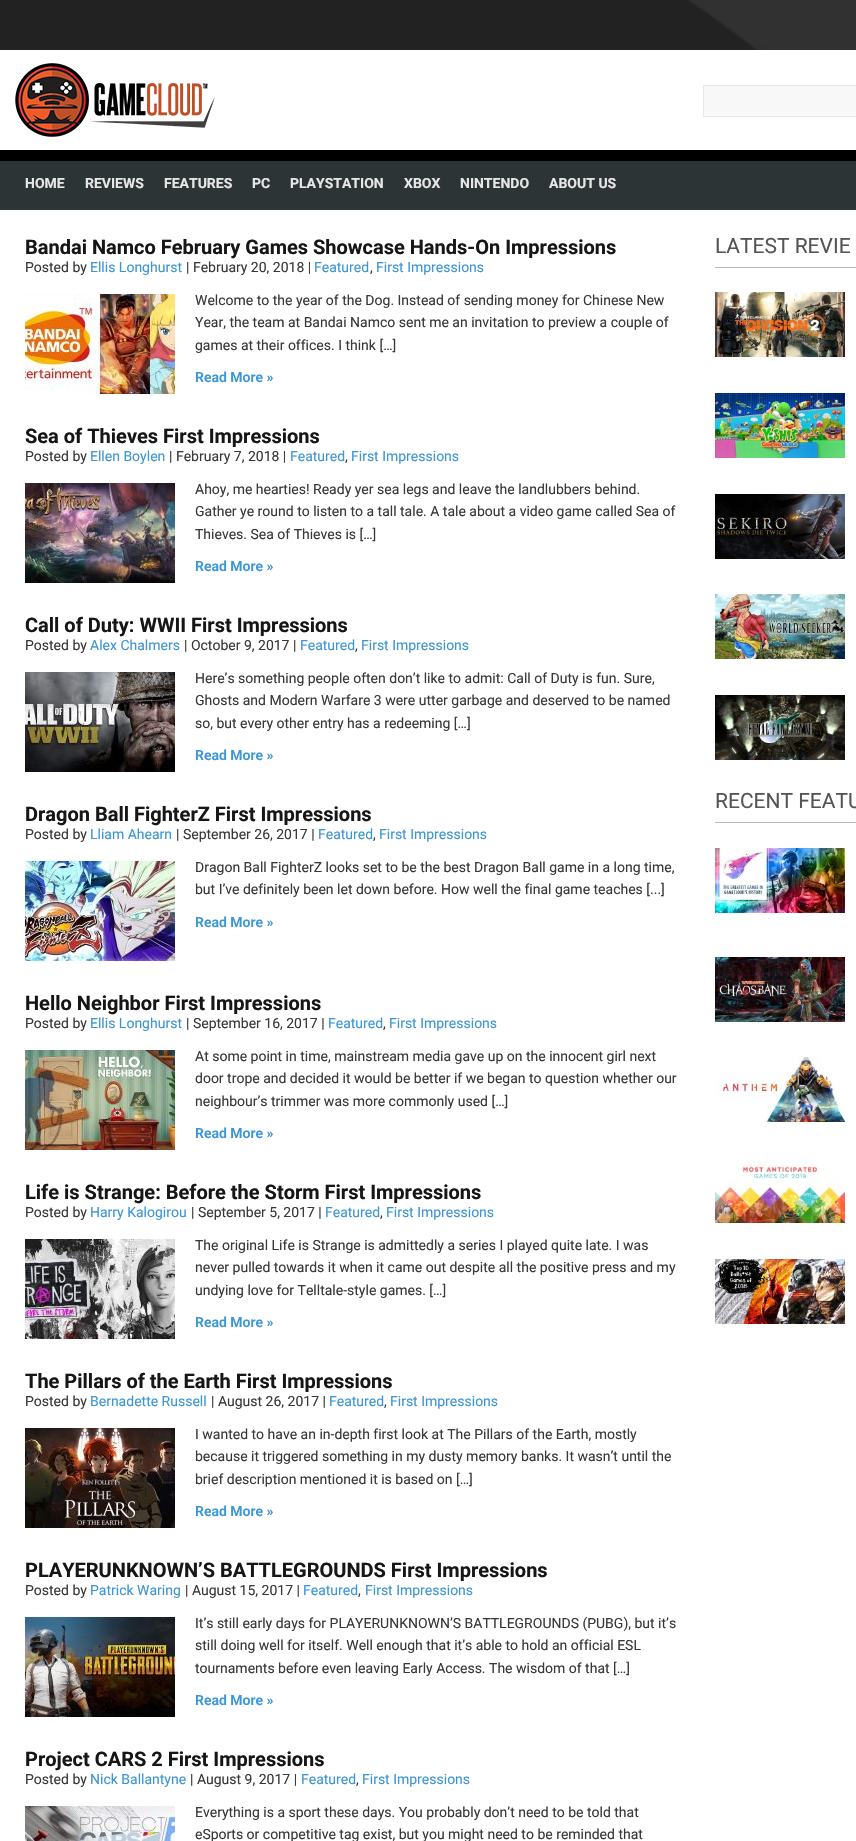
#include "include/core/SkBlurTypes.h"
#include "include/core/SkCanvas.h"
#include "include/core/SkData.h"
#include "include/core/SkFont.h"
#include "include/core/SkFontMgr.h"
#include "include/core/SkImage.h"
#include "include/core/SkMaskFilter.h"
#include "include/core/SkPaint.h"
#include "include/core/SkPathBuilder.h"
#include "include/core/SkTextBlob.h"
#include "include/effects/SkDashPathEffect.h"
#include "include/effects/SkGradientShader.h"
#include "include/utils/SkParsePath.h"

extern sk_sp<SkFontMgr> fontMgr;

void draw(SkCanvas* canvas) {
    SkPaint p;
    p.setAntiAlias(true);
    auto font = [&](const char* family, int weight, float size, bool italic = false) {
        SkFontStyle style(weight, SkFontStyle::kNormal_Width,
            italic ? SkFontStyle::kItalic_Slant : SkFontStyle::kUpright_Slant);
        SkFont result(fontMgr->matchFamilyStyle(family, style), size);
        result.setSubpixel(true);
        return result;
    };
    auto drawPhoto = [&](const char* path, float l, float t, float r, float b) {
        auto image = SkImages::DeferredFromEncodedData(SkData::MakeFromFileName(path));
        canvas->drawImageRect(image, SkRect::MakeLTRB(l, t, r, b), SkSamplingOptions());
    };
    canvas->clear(0xFFFFFFFF);
    drawPhoto("media/1.png", 0, 0, 856, 50);
    drawPhoto("media/2.png", 15, 63, 215, 137);
    p.setColor(0xFFF8F8F8);
    canvas->drawRect(SkRect::MakeLTRB(703.5f, 85.5f, 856.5f, 116.5f), p);
    p.setStyle(SkPaint::kStroke_Style);
    p.setStrokeWidth(1);
    p.setColor(0xFFE7E7E7);
    canvas->drawRect(SkRect::MakeLTRB(703.5f, 85.5f, 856.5f, 116.5f), p);
    drawPhoto("media/3.png", 0, 150, 856, 210);
    auto font1 = font("Roboto", 700, 14);
    p.setStyle(SkPaint::kFill_Style);
    {
        const struct { const char* s; float x, y; } items[] = {
            {"HOME", 25, 188},
            {"REVIEWS", 85, 188},
            {"FEATURES", 164, 188},
            {"PC", 252, 188},
            {"PLAYSTATION", 290, 188},
            {"XBOX", 404, 188},
            {"NINTENDO", 460, 188},
            {"ABOUT US", 549, 188},
        };
        for (auto [s, x, y] : items) {
            canvas->drawString(s, x, y, font1, p);
        }
    }
    auto font2 = font("Roboto", 700, 20);
    p.setColor(0xFF161616);
    canvas->drawString("Bandai Namco February Games Showcase Hands-On Impressions", 25, 254, font2, p);
    auto font3 = font("Roboto", 400, 14);
    p.setColor(0xFF383838);
    canvas->drawString("Posted by", 25, 272, font3, p);
    p.setColor(0xFF3C95D5);
    canvas->drawString("Ellis Longhurst", 90, 272, font3, p);
    p.setColor(0xFF383838);
    canvas->drawString("| February 20, 2018 |", 186, 272, font3, p);
    p.setColor(0xFF3C95D5);
    canvas->drawString("Featured", 314, 272, font3, p);
    p.setColor(0xFF383838);
    canvas->drawString(",", 370, 272, font3, p);
    p.setColor(0xFF3C95D5);
    canvas->drawString("First Impressions", 376, 272, font3, p);
    drawPhoto("media/4.png", 25, 294, 175, 394);
    p.setColor(0xFF383838);
    {
        const struct { const char* s; float x, y; } items[] = {
            {"Welcome to the year of the Dog. Instead of sending money for Chinese New", 195, 305},
            {"Year, the team at Bandai Namco sent me an invitation to preview a couple of", 195, 327},
            {"games at their offices. I think […]", 195, 350},
        };
        for (auto [s, x, y] : items) {
            canvas->drawString(s, x, y, font3, p);
        }
    }
    auto font4 = font("Roboto", 600, 14);
    p.setColor(0xFF3C95D5);
    canvas->drawString("Read More »", 195, 382, font4, p);
    p.setColor(0xFF161616);
    canvas->drawString("Sea of Thieves First Impressions", 25, 443, font2, p);
    p.setColor(0xFF383838);
    canvas->drawString("Posted by", 25, 461, font3, p);
    p.setColor(0xFF3C95D5);
    canvas->drawString("Ellen Boylen", 90, 461, font3, p);
    p.setColor(0xFF383838);
    canvas->drawString("| February 7, 2018 |", 169, 461, font3, p);
    p.setColor(0xFF3C95D5);
    canvas->drawString("Featured", 290, 461, font3, p);
    p.setColor(0xFF383838);
    canvas->drawString(",", 345, 461, font3, p);
    p.setColor(0xFF3C95D5);
    canvas->drawString("First Impressions", 351, 461, font3, p);
    drawPhoto("media/5.png", 25, 483, 175, 583);
    p.setColor(0xFF383838);
    {
        const struct { const char* s; float x, y; } items[] = {
            {"Ahoy, me hearties! Ready yer sea legs and leave the landlubbers behind.", 195, 494},
            {"Gather ye round to listen to a tall tale. A tale about a video game called Sea of", 195, 516},
            {"Thieves. Sea of Thieves is […]", 195, 539},
        };
        for (auto [s, x, y] : items) {
            canvas->drawString(s, x, y, font3, p);
        }
    }
    p.setColor(0xFF3C95D5);
    canvas->drawString("Read More »", 195, 571, font4, p);
    p.setColor(0xFF161616);
    canvas->drawString("Call of Duty: WWII First Impressions", 25, 632, font2, p);
    p.setColor(0xFF383838);
    canvas->drawString("Posted by", 25, 650, font3, p);
    p.setColor(0xFF3C95D5);
    canvas->drawString("Alex Chalmers", 90, 650, font3, p);
    p.setColor(0xFF383838);
    canvas->drawString("| October 9, 2017 |", 184, 650, font3, p);
    p.setColor(0xFF3C95D5);
    canvas->drawString("Featured", 300, 650, font3, p);
    p.setColor(0xFF383838);
    canvas->drawString(",", 355, 650, font3, p);
    p.setColor(0xFF3C95D5);
    canvas->drawString("First Impressions", 361, 650, font3, p);
    drawPhoto("media/6.png", 25, 672, 175, 772);
    p.setColor(0xFF383838);
    {
        const struct { const char* s; float x, y; } items[] = {
            {"Here’s something people often don’t like to admit: Call of Duty is fun. Sure,", 195, 683},
            {"Ghosts and Modern Warfare 3 were utter garbage and deserved to be named", 195, 705},
            {"so, but every other entry has a redeeming […]", 195, 728},
        };
        for (auto [s, x, y] : items) {
            canvas->drawString(s, x, y, font3, p);
        }
    }
    p.setColor(0xFF3C95D5);
    canvas->drawString("Read More »", 195, 760, font4, p);
    p.setColor(0xFF161616);
    canvas->drawString("Dragon Ball FighterZ First Impressions", 25, 821, font2, p);
    p.setColor(0xFF383838);
    canvas->drawString("Posted by", 25, 839, font3, p);
    p.setColor(0xFF3C95D5);
    canvas->drawString("Lliam Ahearn", 90, 839, font3, p);
    p.setColor(0xFF383838);
    canvas->drawString("| September 26, 2017 |", 176, 839, font3, p);
    p.setColor(0xFF3C95D5);
    canvas->drawString("Featured", 318, 839, font3, p);
    p.setColor(0xFF383838);
    canvas->drawString(",", 373, 839, font3, p);
    p.setColor(0xFF3C95D5);
    canvas->drawString("First Impressions", 379, 839, font3, p);
    drawPhoto("media/7.png", 25, 861, 175, 961);
    p.setColor(0xFF383838);
    canvas->drawString("Dragon Ball FighterZ looks set to be the best Dragon Ball game in a long time,", 195, 872, font3, p);
    canvas->drawString("but I’ve definitely been let down before. How well the final game teaches [...]", 195, 894, font3, p);
    p.setColor(0xFF3C95D5);
    canvas->drawString("Read More »", 195, 927, font4, p);
    p.setColor(0xFF161616);
    canvas->drawString("Hello Neighbor First Impressions", 25, 1010, font2, p);
    p.setColor(0xFF383838);
    canvas->drawString("Posted by", 25, 1028, font3, p);
    p.setColor(0xFF3C95D5);
    canvas->drawString("Ellis Longhurst", 90, 1028, font3, p);
    p.setColor(0xFF383838);
    canvas->drawString("| September 16, 2017 |", 186, 1028, font3, p);
    p.setColor(0xFF3C95D5);
    canvas->drawString("Featured", 328, 1028, font3, p);
    p.setColor(0xFF383838);
    canvas->drawString(",", 383, 1028, font3, p);
    p.setColor(0xFF3C95D5);
    canvas->drawString("First Impressions", 389, 1028, font3, p);
    drawPhoto("media/8.png", 25, 1050, 175, 1150);
    p.setColor(0xFF383838);
    {
        const struct { const char* s; float x, y; } items[] = {
            {"At some point in time, mainstream media gave up on the innocent girl next", 195, 1061},
            {"door trope and decided it would be better if we began to question whether our", 195, 1083},
            {"neighbour’s trimmer was more commonly used […]", 195, 1106},
        };
        for (auto [s, x, y] : items) {
            canvas->drawString(s, x, y, font3, p);
        }
    }
    p.setColor(0xFF3C95D5);
    canvas->drawString("Read More »", 195, 1138, font4, p);
    p.setColor(0xFF161616);
    canvas->drawString("Life is Strange: Before the Storm First Impressions", 25, 1199, font2, p);
    p.setColor(0xFF383838);
    canvas->drawString("Posted by", 25, 1217, font3, p);
    p.setColor(0xFF3C95D5);
    canvas->drawString("Harry Kalogirou", 90, 1217, font3, p);
    p.setColor(0xFF383838);
    canvas->drawString("| September 5, 2017 |", 191, 1217, font3, p);
    p.setColor(0xFF3C95D5);
    canvas->drawString("Featured", 325, 1217, font3, p);
    p.setColor(0xFF383838);
    canvas->drawString(",", 380, 1217, font3, p);
    p.setColor(0xFF3C95D5);
    canvas->drawString("First Impressions", 386, 1217, font3, p);
    drawPhoto("media/9.png", 25, 1239, 175, 1339);
    p.setColor(0xFF383838);
    {
        const struct { const char* s; float x, y; } items[] = {
            {"The original Life is Strange is admittedly a series I played quite late. I was", 195, 1250},
            {"never pulled towards it when it came out despite all the positive press and my", 195, 1272},
            {"undying love for Telltale-style games. […]", 195, 1295},
        };
        for (auto [s, x, y] : items) {
            canvas->drawString(s, x, y, font3, p);
        }
    }
    p.setColor(0xFF3C95D5);
    canvas->drawString("Read More »", 195, 1327, font4, p);
    p.setColor(0xFF161616);
    canvas->drawString("The Pillars of the Earth First Impressions", 25, 1388, font2, p);
    p.setColor(0xFF383838);
    canvas->drawString("Posted by", 25, 1406, font3, p);
    p.setColor(0xFF3C95D5);
    canvas->drawString("Bernadette Russell", 90, 1406, font3, p);
    p.setColor(0xFF383838);
    canvas->drawString("| August 26, 2017 |", 211, 1406, font3, p);
    p.setColor(0xFF3C95D5);
    canvas->drawString("Featured", 329, 1406, font3, p);
    p.setColor(0xFF383838);
    canvas->drawString(",", 384, 1406, font3, p);
    p.setColor(0xFF3C95D5);
    canvas->drawString("First Impressions", 390, 1406, font3, p);
    drawPhoto("media/10.png", 25, 1428, 175, 1528);
    p.setColor(0xFF383838);
    {
        const struct { const char* s; float x, y; } items[] = {
            {"I wanted to have an in-depth first look at The Pillars of the Earth, mostly", 195, 1439},
            {"because it triggered something in my dusty memory banks. It wasn’t until the", 195, 1461},
            {"brief description mentioned it is based on […]", 195, 1484},
        };
        for (auto [s, x, y] : items) {
            canvas->drawString(s, x, y, font3, p);
        }
    }
    p.setColor(0xFF3C95D5);
    canvas->drawString("Read More »", 195, 1516, font4, p);
    p.setColor(0xFF161616);
    canvas->drawString("PLAYERUNKNOWN’S BATTLEGROUNDS First Impressions", 25, 1577, font2, p);
    p.setColor(0xFF383838);
    canvas->drawString("Posted by", 25, 1595, font3, p);
    p.setColor(0xFF3C95D5);
    canvas->drawString("Patrick Waring", 90, 1595, font3, p);
    p.setColor(0xFF383838);
    canvas->drawString("| August 15, 2017 |", 185, 1595, font3, p);
    p.setColor(0xFF3C95D5);
    canvas->drawString("Featured", 303, 1595, font3, p);
    p.setColor(0xFF383838);
    canvas->drawString(",", 358, 1595, font3, p);
    p.setColor(0xFF3C95D5);
    canvas->drawString("First Impressions", 365, 1595, font3, p);
    drawPhoto("media/11.png", 25, 1617, 175, 1717);
    p.setColor(0xFF383838);
    {
        const struct { const char* s; float x, y; } items[] = {
            {"It’s still early days for PLAYERUNKNOWN’S BATTLEGROUNDS (PUBG), but it’s", 195, 1628},
            {"still doing well for itself. Well enough that it’s able to hold an official ESL", 195, 1650},
            {"tournaments before even leaving Early Access. The wisdom of that […]", 195, 1673},
        };
        for (auto [s, x, y] : items) {
            canvas->drawString(s, x, y, font3, p);
        }
    }
    p.setColor(0xFF3C95D5);
    canvas->drawString("Read More »", 195, 1705, font4, p);
    p.setColor(0xFF161616);
    canvas->drawString("Project CARS 2 First Impressions", 25, 1766, font2, p);
    p.setColor(0xFF383838);
    canvas->drawString("Posted by", 25, 1784, font3, p);
    p.setColor(0xFF3C95D5);
    canvas->drawString("Nick Ballantyne", 90, 1784, font3, p);
    p.setColor(0xFF383838);
    canvas->drawString("| August 9, 2017 |", 190, 1784, font3, p);
    p.setColor(0xFF3C95D5);
    canvas->drawString("Featured", 301, 1784, font3, p);
    p.setColor(0xFF383838);
    canvas->drawString(",", 356, 1784, font3, p);
    p.setColor(0xFF3C95D5);
    canvas->drawString("First Impressions", 362, 1784, font3, p);
    drawPhoto("media/12.png", 25, 1806, 175, 1841);
    p.setColor(0xFF383838);
    canvas->drawString("Everything is a sport these days. You probably don’t need to be told that", 195, 1817, font3, p);
    canvas->drawString("eSports or competitive tag exist, but you might need to be reminded that", 195, 1839, font3, p);
    p.setColor(0xFFBBBBBB);
    canvas->drawRect(SkRect::MakeLTRB(715, 267, 856, 268), p);
    auto font5 = font("Roboto", 400, 21);
    p.setColor(0xFF555555);
    canvas->drawString("LATEST REVIE", 715, 253, font5, p);
    drawPhoto("media/13.png", 715, 292, 845, 357);
    drawPhoto("media/14.png", 715, 393, 845, 458);
    drawPhoto("media/15.png", 715, 494, 845, 559);
    drawPhoto("media/16.png", 715, 594, 845, 659);
    drawPhoto("media/17.png", 715, 695, 845, 760);
    p.setColor(0xFFBBBBBB);
    canvas->drawRect(SkRect::MakeLTRB(715, 822, 856, 823), p);
    p.setColor(0xFF555555);
    canvas->drawString("RECENT FEATU", 715, 808, font5, p);
    drawPhoto("media/18.png", 715, 848, 845, 913);
    drawPhoto("media/19.png", 715, 957, 845, 1022);
    drawPhoto("media/20.png", 715, 1057, 845, 1122);
    drawPhoto("media/21.png", 715, 1158, 845, 1223);
    drawPhoto("media/22.png", 715, 1259, 845, 1324);
}
